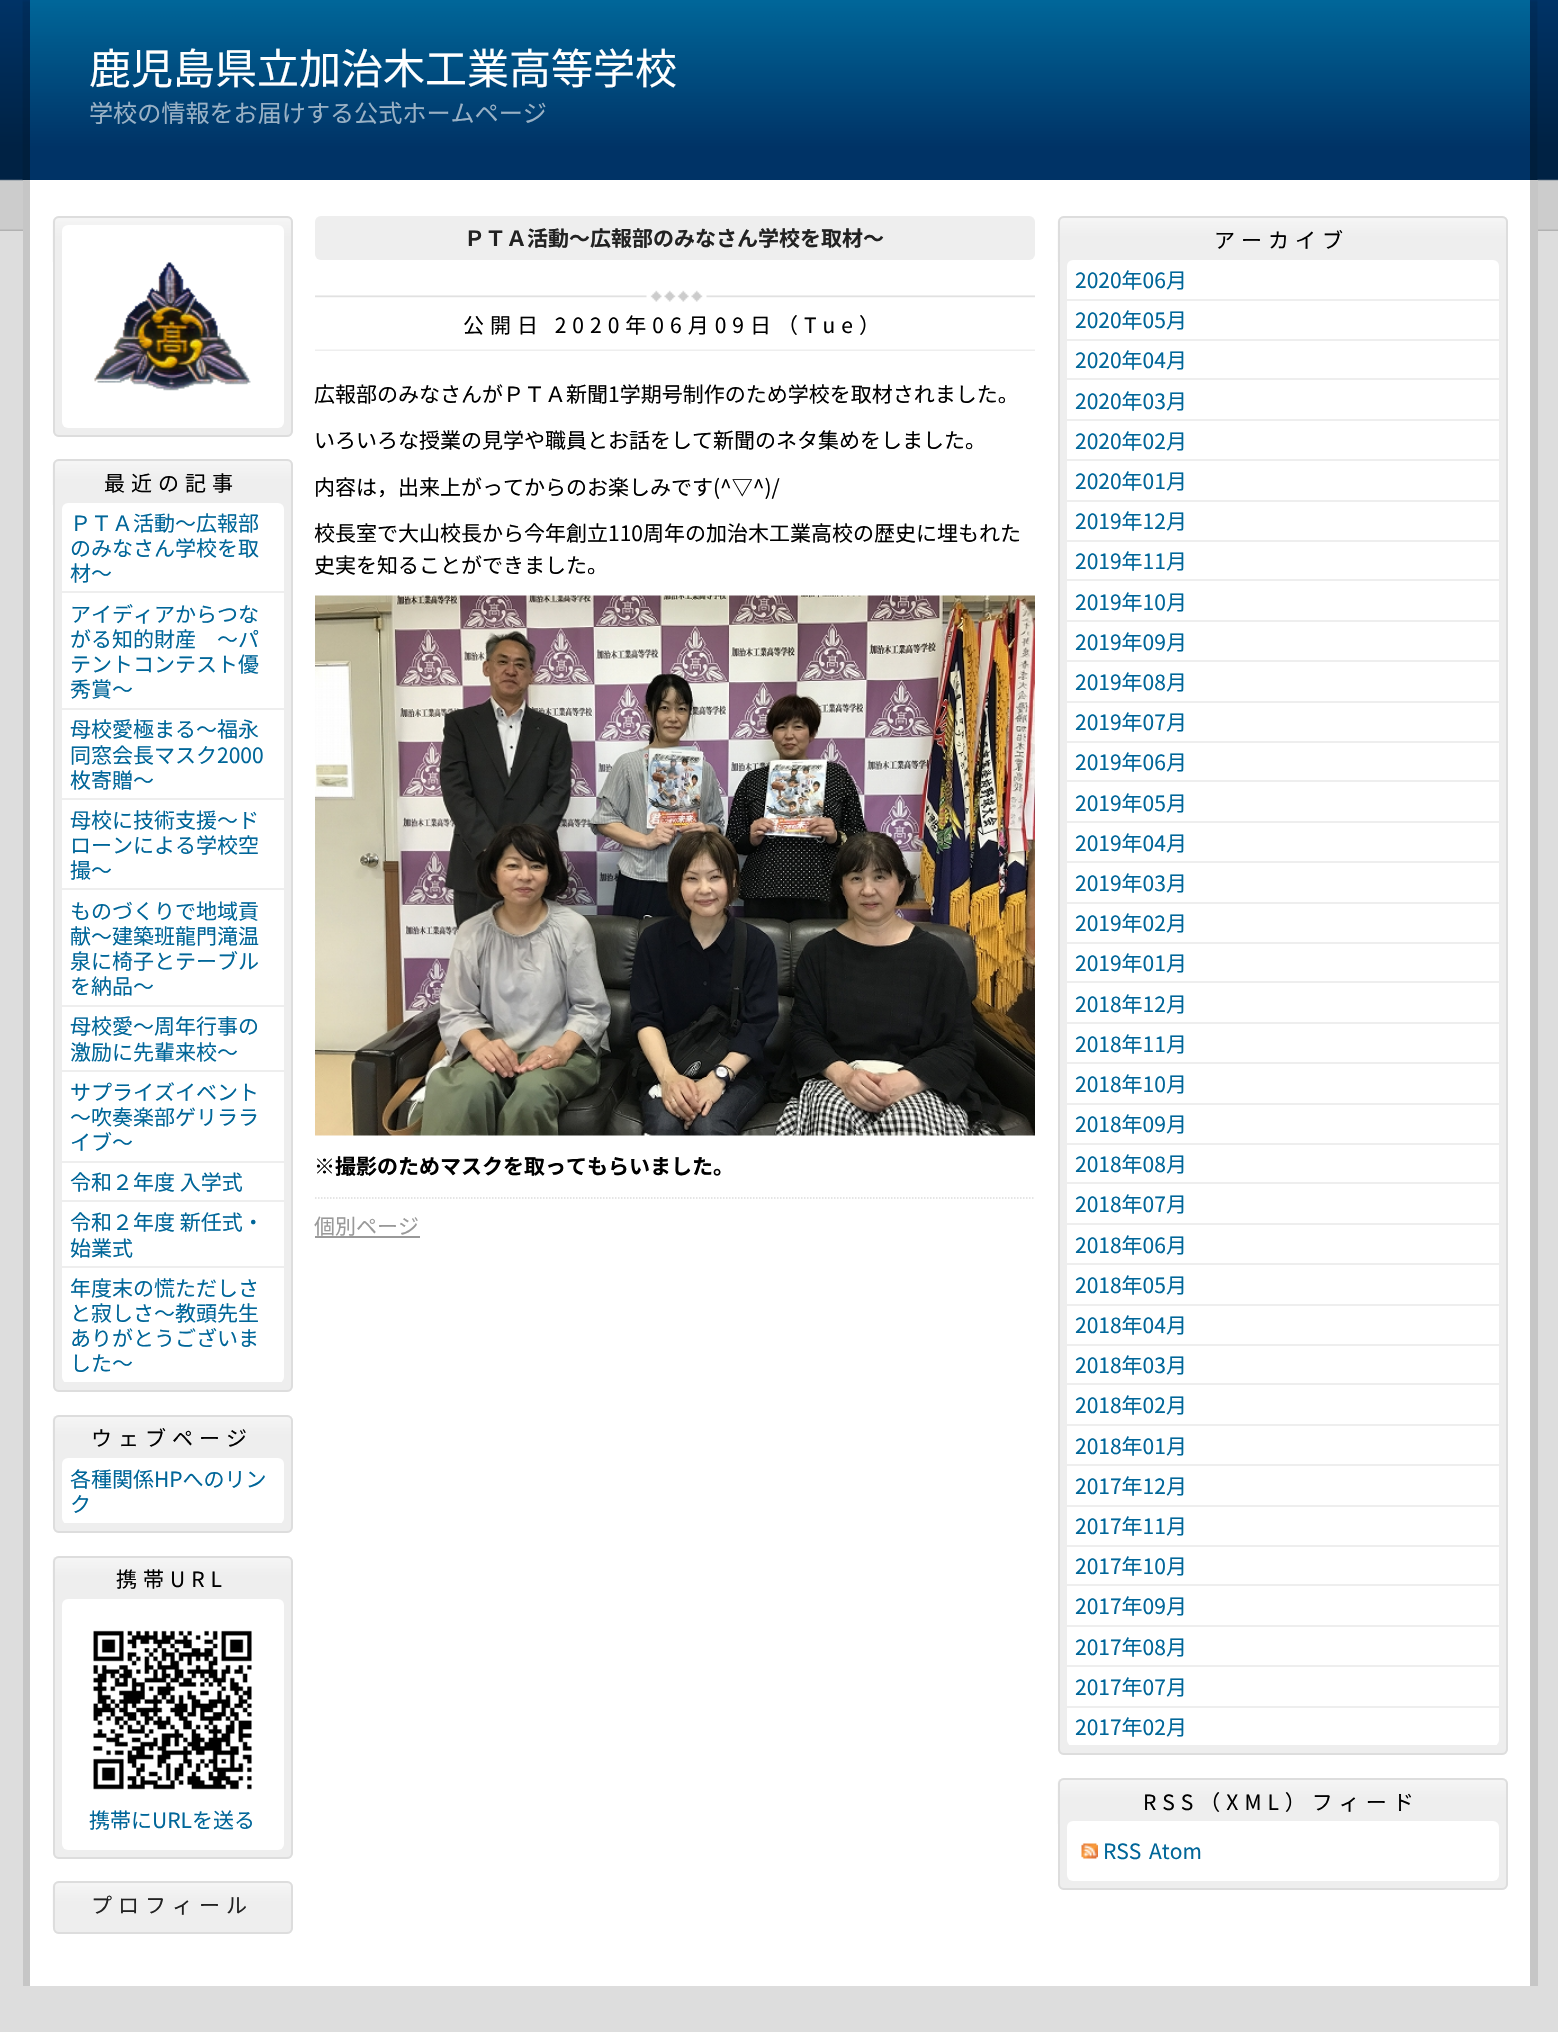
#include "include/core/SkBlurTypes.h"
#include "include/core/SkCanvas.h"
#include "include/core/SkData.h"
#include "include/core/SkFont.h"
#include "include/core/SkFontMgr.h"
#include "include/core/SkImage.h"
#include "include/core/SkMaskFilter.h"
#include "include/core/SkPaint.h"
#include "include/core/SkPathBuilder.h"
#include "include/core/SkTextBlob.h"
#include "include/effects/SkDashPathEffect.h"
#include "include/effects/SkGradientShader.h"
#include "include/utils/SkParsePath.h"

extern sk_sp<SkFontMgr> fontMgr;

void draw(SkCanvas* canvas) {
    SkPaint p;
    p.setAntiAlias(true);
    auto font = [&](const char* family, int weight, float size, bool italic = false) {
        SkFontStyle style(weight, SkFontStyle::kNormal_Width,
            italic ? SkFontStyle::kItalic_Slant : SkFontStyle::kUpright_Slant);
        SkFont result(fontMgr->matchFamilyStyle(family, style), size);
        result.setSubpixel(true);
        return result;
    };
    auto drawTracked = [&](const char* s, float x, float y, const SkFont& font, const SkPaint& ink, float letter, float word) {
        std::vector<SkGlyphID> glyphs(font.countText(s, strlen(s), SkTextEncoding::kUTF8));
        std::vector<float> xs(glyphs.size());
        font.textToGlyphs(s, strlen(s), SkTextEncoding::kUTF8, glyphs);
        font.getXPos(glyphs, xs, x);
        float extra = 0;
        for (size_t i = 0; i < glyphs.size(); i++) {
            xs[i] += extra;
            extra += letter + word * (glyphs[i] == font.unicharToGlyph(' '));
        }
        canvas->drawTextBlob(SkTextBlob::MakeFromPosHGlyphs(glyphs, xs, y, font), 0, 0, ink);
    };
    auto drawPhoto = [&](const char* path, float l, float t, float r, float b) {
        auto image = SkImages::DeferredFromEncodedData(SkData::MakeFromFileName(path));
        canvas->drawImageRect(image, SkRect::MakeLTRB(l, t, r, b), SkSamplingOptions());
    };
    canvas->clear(0xFFDDDDDD);
    drawPhoto("media/1.png", 0, 0, 1558, 231);
    drawPhoto("media/2.png", 22, 0, 1538, 180);
    drawPhoto("media/3.png", 30, 0, 1530, 180);
    auto font1 = font("Noto Sans JP", 400, 42);
    p.setColor(0xFFFFFFFF);
    canvas->drawString("鹿児島県立加治木工業高等学校", 89, 84, font1, p);
    auto font2 = font("Noto Sans JP", 400, 24.1f);
    p.setColor(0xFF99B1C5);
    canvas->drawString("学校の情報をお届けする公式ホームページ", 89, 122, font2, p);
    p.setColor(0xFFC6C6C6);
    canvas->drawRect(SkRect::MakeLTRB(23, 180, 1538, 1986), p);
    p.setColor(0xFFFFFFFF);
    canvas->drawRect(SkRect::MakeLTRB(30, 180, 1530, 1986), p);
    p.setColor(0xFFEEEEEE);
    canvas->drawRoundRect(SkRect::MakeLTRB(53, 216, 293, 437), 6, 6, p);
    drawPhoto("media/4.png", 52, 218, 292, 262);
    p.setStyle(SkPaint::kStroke_Style);
    p.setStrokeWidth(2);
    p.setColor(0xFFDDDDDD);
    canvas->drawRoundRect(SkRect::MakeLTRB(54, 217, 292, 436), 5, 5, p);
    p.setStyle(SkPaint::kFill_Style);
    p.setColor(0xFFFFFFFF);
    canvas->drawRoundRect(SkRect::MakeLTRB(62, 225, 284, 428), 6, 6, p);
    drawPhoto("media/5.png", 94, 262, 251, 391);
    p.setColor(0xFFEEEEEE);
    canvas->drawRoundRect(SkRect::MakeLTRB(53, 459, 293, 1392), 6, 6, p);
    drawPhoto("media/4.png", 52, 461, 292, 505);
    p.setStyle(SkPaint::kStroke_Style);
    p.setColor(0xFFDDDDDD);
    canvas->drawRoundRect(SkRect::MakeLTRB(54, 460, 292, 1391), 5, 5, p);
    auto font3 = font("Noto Sans JP", 400, 21);
    p.setStyle(SkPaint::kFill_Style);
    p.setColor(0xFF000000);
    drawTracked("最近の記事", 104, 491, font3, p, 6, 0);
    p.setColor(0xFFFFFFFF);
    canvas->drawRoundRect(SkRect::MakeLTRB(62, 503, 284, 1383), 6, 6, p);
    p.setColor(0xFFEEEEEE);
    canvas->drawRect(SkRect::MakeLTRB(62, 591, 284, 593), p);
    p.setColor(0xFF006699);
    {
        const struct { const char* s; float x, y; } items[] = {
            {"ＰＴＡ活動～広報部", 70, 531},
            {"のみなさん学校を取", 70, 556},
            {"材～", 70, 581},
        };
        for (auto [s, x, y] : items) {
            canvas->drawString(s, x, y, font3, p);
        }
    }
    p.setColor(0xFFEEEEEE);
    canvas->drawRect(SkRect::MakeLTRB(62, 708, 284, 710), p);
    p.setColor(0xFF006699);
    {
        const struct { const char* s; float x, y; } items[] = {
            {"アイディアからつな", 70, 622},
            {"がる知的財産　～パ", 70, 647},
            {"テントコンテスト優", 70, 672},
            {"秀賞～", 70, 697},
        };
        for (auto [s, x, y] : items) {
            canvas->drawString(s, x, y, font3, p);
        }
    }
    p.setColor(0xFFEEEEEE);
    canvas->drawRect(SkRect::MakeLTRB(62, 798, 284, 800), p);
    p.setColor(0xFF006699);
    {
        const struct { const char* s; float x, y; } items[] = {
            {"母校愛極まる～福永", 70, 737},
            {"同窓会長マスク2000", 70, 763},
            {"枚寄贈～", 70, 788},
        };
        for (auto [s, x, y] : items) {
            canvas->drawString(s, x, y, font3, p);
        }
    }
    p.setColor(0xFFEEEEEE);
    canvas->drawRect(SkRect::MakeLTRB(62, 888, 284, 890), p);
    p.setColor(0xFF006699);
    {
        const struct { const char* s; float x, y; } items[] = {
            {"母校に技術支援～ド", 70, 828},
            {"ローンによる学校空", 70, 853},
            {"撮～", 70, 878},
        };
        for (auto [s, x, y] : items) {
            canvas->drawString(s, x, y, font3, p);
        }
    }
    p.setColor(0xFFEEEEEE);
    canvas->drawRect(SkRect::MakeLTRB(62, 1005, 284, 1007), p);
    p.setColor(0xFF006699);
    {
        const struct { const char* s; float x, y; } items[] = {
            {"ものづくりで地域貢", 70, 919},
            {"献～建築班龍門滝温", 70, 944},
            {"泉に椅子とテーブル", 70, 969},
            {"を納品～", 70, 994},
        };
        for (auto [s, x, y] : items) {
            canvas->drawString(s, x, y, font3, p);
        }
    }
    p.setColor(0xFFEEEEEE);
    canvas->drawRect(SkRect::MakeLTRB(62, 1070, 284, 1072), p);
    p.setColor(0xFF006699);
    canvas->drawString("母校愛～周年行事の", 70, 1034, font3, p);
    canvas->drawString("激励に先輩来校～", 70, 1060, font3, p);
    p.setColor(0xFFEEEEEE);
    canvas->drawRect(SkRect::MakeLTRB(62, 1161, 284, 1163), p);
    p.setColor(0xFF006699);
    {
        const struct { const char* s; float x, y; } items[] = {
            {"サプライズイベント", 70, 1100},
            {"～吹奏楽部ゲリララ", 70, 1125},
            {"イブ～", 70, 1150},
        };
        for (auto [s, x, y] : items) {
            canvas->drawString(s, x, y, font3, p);
        }
    }
    p.setColor(0xFFEEEEEE);
    canvas->drawRect(SkRect::MakeLTRB(62, 1200, 284, 1202), p);
    p.setColor(0xFF006699);
    canvas->drawString("令和２年度 入学式", 70, 1190, font3, p);
    p.setColor(0xFFEEEEEE);
    canvas->drawRect(SkRect::MakeLTRB(62, 1266, 284, 1268), p);
    p.setColor(0xFF006699);
    canvas->drawString("令和２年度 新任式・", 70, 1230, font3, p);
    canvas->drawString("始業式", 70, 1256, font3, p);
    p.setColor(0xFFEEEEEE);
    canvas->drawRect(SkRect::MakeLTRB(62, 1382, 284, 1383), p);
    p.setColor(0xFF006699);
    {
        const struct { const char* s; float x, y; } items[] = {
            {"年度末の慌ただしさ", 70, 1296},
            {"と寂しさ～教頭先生", 70, 1321},
            {"ありがとうございま", 70, 1346},
            {"した～", 70, 1371},
        };
        for (auto [s, x, y] : items) {
            canvas->drawString(s, x, y, font3, p);
        }
    }
    p.setColor(0xFFEEEEEE);
    canvas->drawRoundRect(SkRect::MakeLTRB(53, 1415, 293, 1533), 6, 6, p);
    drawPhoto("media/6.png", 52, 1416, 292, 1461);
    p.setStyle(SkPaint::kStroke_Style);
    p.setColor(0xFFDDDDDD);
    canvas->drawRoundRect(SkRect::MakeLTRB(54, 1416, 292, 1532), 5, 5, p);
    p.setStyle(SkPaint::kFill_Style);
    p.setColor(0xFF000000);
    drawTracked("ウェブページ", 91, 1446, font3, p, 6, 0);
    p.setColor(0xFFFFFFFF);
    canvas->drawRoundRect(SkRect::MakeLTRB(62, 1458, 284, 1524), 6, 6, p);
    p.setColor(0xFFEEEEEE);
    canvas->drawRect(SkRect::MakeLTRB(62, 1523, 284, 1524), p);
    p.setColor(0xFF006699);
    canvas->drawString("各種関係HPへのリン", 70, 1487, font3, p);
    canvas->drawString("ク", 70, 1512, font3, p);
    p.setColor(0xFFEEEEEE);
    canvas->drawRoundRect(SkRect::MakeLTRB(53, 1556, 293, 1859), 6, 6, p);
    drawPhoto("media/6.png", 52, 1557, 292, 1602);
    p.setStyle(SkPaint::kStroke_Style);
    p.setColor(0xFFDDDDDD);
    canvas->drawRoundRect(SkRect::MakeLTRB(54, 1557, 292, 1858), 5, 5, p);
    p.setStyle(SkPaint::kFill_Style);
    p.setColor(0xFF000000);
    drawTracked("携帯URL", 116, 1587, font3, p, 6, 0);
    p.setColor(0xFFFFFFFF);
    canvas->drawRoundRect(SkRect::MakeLTRB(62, 1599, 284, 1850), 6, 6, p);
    drawPhoto("media/7.png", 93, 1630, 252, 1790);
    p.setColor(0xFF006699);
    canvas->drawString("携帯にURLを送る", 89, 1828, font3, p);
    p.setColor(0xFFEEEEEE);
    canvas->drawRoundRect(SkRect::MakeLTRB(53, 1881, 293, 1934), 6, 6, p);
    drawPhoto("media/4.png", 52, 1883, 292, 1927);
    p.setStyle(SkPaint::kStroke_Style);
    p.setColor(0xFFDDDDDD);
    canvas->drawRoundRect(SkRect::MakeLTRB(54, 1882, 292, 1933), 5, 5, p);
    p.setStyle(SkPaint::kFill_Style);
    p.setColor(0xFF222222);
    drawTracked("プロフィール", 91, 1913, font3, p, 6, 0);
    p.setColor(0xFFEEEEEE);
    canvas->drawRoundRect(SkRect::MakeLTRB(315, 216, 1035, 260), 6, 6, p);
    auto font4 = font("Noto Sans JP", 700, 21);
    p.setColor(0xFF222222);
    canvas->drawString("ＰＴＡ活動～広報部のみなさん学校を取材～", 464, 246, font4, p);
    drawPhoto("media/8.png", 315, 290, 1035, 351);
    p.setColor(0xFF000000);
    drawTracked("公開日 2020年06月09日（Tue）", 463, 333, font3, p, 6, 0);
    {
        const struct { const char* s; float x, y; } items[] = {
            {"広報部のみなさんがＰＴＡ新聞1学期号制作のため学校を取材されました。", 314, 402},
            {"いろいろな授業の見学や職員とお話をして新聞のネタ集めをしました。", 314, 448},
            {"内容は，出来上がってからのお楽しみです(^▽^)/", 314, 495},
            {"校長室で大山校長から今年創立110周年の加治木工業高校の歴史に埋もれた", 314, 541},
            {"史実を知ることができました。", 314, 573},
        };
        for (auto [s, x, y] : items) {
            canvas->drawString(s, x, y, font3, p);
        }
    }
    drawPhoto("media/9.png", 315, 595, 1035, 1136);
    canvas->drawString("※撮影のためマスクを取ってもらいました。", 314, 1174, font4, p);
    p.setStyle(SkPaint::kStroke_Style);
    p.setStrokeWidth(1.5f);
    p.setColor(0xFFDDDDDD);
    p.setPathEffect(SkDashPathEffect::Make({{1.5f, 1.5f}}, 0));
    canvas->drawPath(SkPathBuilder().moveTo(315, 1198).lineTo(1035, 1198).detach(), p);
    p.setPathEffect(nullptr);
    p.setStyle(SkPaint::kFill_Style);
    p.setColor(0xFF999999);
    canvas->drawString("個別ページ", 314, 1234, font3, p);
    canvas->drawRect(SkRect::MakeLTRB(315, 1236, 420, 1238), p);
    p.setColor(0xFFEEEEEE);
    canvas->drawRoundRect(SkRect::MakeLTRB(1058, 216, 1508, 1755), 6, 6, p);
    drawPhoto("media/10.png", 1057, 218, 1507, 262);
    p.setStyle(SkPaint::kStroke_Style);
    p.setStrokeWidth(2);
    p.setColor(0xFFDDDDDD);
    canvas->drawRoundRect(SkRect::MakeLTRB(1059, 217, 1507, 1754), 5, 5, p);
    p.setStyle(SkPaint::kFill_Style);
    p.setColor(0xFF000000);
    drawTracked("アーカイブ", 1214, 248, font3, p, 6, 0);
    p.setColor(0xFFFFFFFF);
    canvas->drawRoundRect(SkRect::MakeLTRB(1067, 260, 1499, 1746), 6, 6, p);
    p.setColor(0xFFEEEEEE);
    canvas->drawRect(SkRect::MakeLTRB(1067, 299, 1499, 301), p);
    p.setColor(0xFF006699);
    canvas->drawString("2020年06月", 1075, 288, font3, p);
    p.setColor(0xFFEEEEEE);
    canvas->drawRect(SkRect::MakeLTRB(1067, 339, 1499, 341), p);
    p.setColor(0xFF006699);
    canvas->drawString("2020年05月", 1075, 328, font3, p);
    p.setColor(0xFFEEEEEE);
    canvas->drawRect(SkRect::MakeLTRB(1067, 378, 1499, 380), p);
    p.setColor(0xFF006699);
    canvas->drawString("2020年04月", 1075, 368, font3, p);
    p.setColor(0xFFEEEEEE);
    canvas->drawRect(SkRect::MakeLTRB(1067, 419, 1499, 421), p);
    p.setColor(0xFF006699);
    canvas->drawString("2020年03月", 1075, 409, font3, p);
    p.setColor(0xFFEEEEEE);
    canvas->drawRect(SkRect::MakeLTRB(1067, 459, 1499, 461), p);
    p.setColor(0xFF006699);
    canvas->drawString("2020年02月", 1075, 449, font3, p);
    p.setColor(0xFFEEEEEE);
    canvas->drawRect(SkRect::MakeLTRB(1067, 500, 1499, 502), p);
    p.setColor(0xFF006699);
    canvas->drawString("2020年01月", 1075, 489, font3, p);
    p.setColor(0xFFEEEEEE);
    canvas->drawRect(SkRect::MakeLTRB(1067, 540, 1499, 542), p);
    p.setColor(0xFF006699);
    canvas->drawString("2019年12月", 1075, 529, font3, p);
    p.setColor(0xFFEEEEEE);
    canvas->drawRect(SkRect::MakeLTRB(1067, 579, 1499, 581), p);
    p.setColor(0xFF006699);
    canvas->drawString("2019年11月", 1075, 569, font3, p);
    p.setColor(0xFFEEEEEE);
    canvas->drawRect(SkRect::MakeLTRB(1067, 620, 1499, 622), p);
    p.setColor(0xFF006699);
    canvas->drawString("2019年10月", 1075, 610, font3, p);
    p.setColor(0xFFEEEEEE);
    canvas->drawRect(SkRect::MakeLTRB(1067, 660, 1499, 662), p);
    p.setColor(0xFF006699);
    canvas->drawString("2019年09月", 1075, 650, font3, p);
    p.setColor(0xFFEEEEEE);
    canvas->drawRect(SkRect::MakeLTRB(1067, 701, 1499, 703), p);
    p.setColor(0xFF006699);
    canvas->drawString("2019年08月", 1075, 690, font3, p);
    p.setColor(0xFFEEEEEE);
    canvas->drawRect(SkRect::MakeLTRB(1067, 741, 1499, 743), p);
    p.setColor(0xFF006699);
    canvas->drawString("2019年07月", 1075, 730, font3, p);
    p.setColor(0xFFEEEEEE);
    canvas->drawRect(SkRect::MakeLTRB(1067, 780, 1499, 782), p);
    p.setColor(0xFF006699);
    canvas->drawString("2019年06月", 1075, 770, font3, p);
    p.setColor(0xFFEEEEEE);
    canvas->drawRect(SkRect::MakeLTRB(1067, 821, 1499, 823), p);
    p.setColor(0xFF006699);
    canvas->drawString("2019年05月", 1075, 811, font3, p);
    p.setColor(0xFFEEEEEE);
    canvas->drawRect(SkRect::MakeLTRB(1067, 861, 1499, 863), p);
    p.setColor(0xFF006699);
    canvas->drawString("2019年04月", 1075, 851, font3, p);
    p.setColor(0xFFEEEEEE);
    canvas->drawRect(SkRect::MakeLTRB(1067, 902, 1499, 904), p);
    p.setColor(0xFF006699);
    canvas->drawString("2019年03月", 1075, 891, font3, p);
    p.setColor(0xFFEEEEEE);
    canvas->drawRect(SkRect::MakeLTRB(1067, 942, 1499, 944), p);
    p.setColor(0xFF006699);
    canvas->drawString("2019年02月", 1075, 931, font3, p);
    p.setColor(0xFFEEEEEE);
    canvas->drawRect(SkRect::MakeLTRB(1067, 981, 1499, 983), p);
    p.setColor(0xFF006699);
    canvas->drawString("2019年01月", 1075, 971, font3, p);
    p.setColor(0xFFEEEEEE);
    canvas->drawRect(SkRect::MakeLTRB(1067, 1022, 1499, 1024), p);
    p.setColor(0xFF006699);
    canvas->drawString("2018年12月", 1075, 1012, font3, p);
    p.setColor(0xFFEEEEEE);
    canvas->drawRect(SkRect::MakeLTRB(1067, 1062, 1499, 1064), p);
    p.setColor(0xFF006699);
    canvas->drawString("2018年11月", 1075, 1052, font3, p);
    p.setColor(0xFFEEEEEE);
    canvas->drawRect(SkRect::MakeLTRB(1067, 1103, 1499, 1105), p);
    p.setColor(0xFF006699);
    canvas->drawString("2018年10月", 1075, 1092, font3, p);
    p.setColor(0xFFEEEEEE);
    canvas->drawRect(SkRect::MakeLTRB(1067, 1143, 1499, 1145), p);
    p.setColor(0xFF006699);
    canvas->drawString("2018年09月", 1075, 1132, font3, p);
    p.setColor(0xFFEEEEEE);
    canvas->drawRect(SkRect::MakeLTRB(1067, 1182, 1499, 1184), p);
    p.setColor(0xFF006699);
    canvas->drawString("2018年08月", 1075, 1172, font3, p);
    p.setColor(0xFFEEEEEE);
    canvas->drawRect(SkRect::MakeLTRB(1067, 1223, 1499, 1225), p);
    p.setColor(0xFF006699);
    canvas->drawString("2018年07月", 1075, 1212, font3, p);
    p.setColor(0xFFEEEEEE);
    canvas->drawRect(SkRect::MakeLTRB(1067, 1263, 1499, 1265), p);
    p.setColor(0xFF006699);
    canvas->drawString("2018年06月", 1075, 1253, font3, p);
    p.setColor(0xFFEEEEEE);
    canvas->drawRect(SkRect::MakeLTRB(1067, 1304, 1499, 1306), p);
    p.setColor(0xFF006699);
    canvas->drawString("2018年05月", 1075, 1293, font3, p);
    p.setColor(0xFFEEEEEE);
    canvas->drawRect(SkRect::MakeLTRB(1067, 1344, 1499, 1346), p);
    p.setColor(0xFF006699);
    canvas->drawString("2018年04月", 1075, 1333, font3, p);
    p.setColor(0xFFEEEEEE);
    canvas->drawRect(SkRect::MakeLTRB(1067, 1383, 1499, 1385), p);
    p.setColor(0xFF006699);
    canvas->drawString("2018年03月", 1075, 1373, font3, p);
    p.setColor(0xFFEEEEEE);
    canvas->drawRect(SkRect::MakeLTRB(1067, 1424, 1499, 1426), p);
    p.setColor(0xFF006699);
    canvas->drawString("2018年02月", 1075, 1413, font3, p);
    p.setColor(0xFFEEEEEE);
    canvas->drawRect(SkRect::MakeLTRB(1067, 1464, 1499, 1466), p);
    p.setColor(0xFF006699);
    canvas->drawString("2018年01月", 1075, 1454, font3, p);
    p.setColor(0xFFEEEEEE);
    canvas->drawRect(SkRect::MakeLTRB(1067, 1505, 1499, 1507), p);
    p.setColor(0xFF006699);
    canvas->drawString("2017年12月", 1075, 1494, font3, p);
    p.setColor(0xFFEEEEEE);
    canvas->drawRect(SkRect::MakeLTRB(1067, 1545, 1499, 1547), p);
    p.setColor(0xFF006699);
    canvas->drawString("2017年11月", 1075, 1534, font3, p);
    p.setColor(0xFFEEEEEE);
    canvas->drawRect(SkRect::MakeLTRB(1067, 1584, 1499, 1586), p);
    p.setColor(0xFF006699);
    canvas->drawString("2017年10月", 1075, 1574, font3, p);
    p.setColor(0xFFEEEEEE);
    canvas->drawRect(SkRect::MakeLTRB(1067, 1625, 1499, 1627), p);
    p.setColor(0xFF006699);
    canvas->drawString("2017年09月", 1075, 1614, font3, p);
    p.setColor(0xFFEEEEEE);
    canvas->drawRect(SkRect::MakeLTRB(1067, 1665, 1499, 1667), p);
    p.setColor(0xFF006699);
    canvas->drawString("2017年08月", 1075, 1655, font3, p);
    p.setColor(0xFFEEEEEE);
    canvas->drawRect(SkRect::MakeLTRB(1067, 1706, 1499, 1708), p);
    p.setColor(0xFF006699);
    canvas->drawString("2017年07月", 1075, 1695, font3, p);
    p.setColor(0xFFEEEEEE);
    canvas->drawRect(SkRect::MakeLTRB(1067, 1745, 1499, 1746), p);
    p.setColor(0xFF006699);
    canvas->drawString("2017年02月", 1075, 1735, font3, p);
    p.setColor(0xFFEEEEEE);
    canvas->drawRoundRect(SkRect::MakeLTRB(1058, 1778, 1508, 1890), 6, 6, p);
    drawPhoto("media/11.png", 1057, 1779, 1507, 1824);
    p.setStyle(SkPaint::kStroke_Style);
    p.setColor(0xFFDDDDDD);
    canvas->drawRoundRect(SkRect::MakeLTRB(1059, 1779, 1507, 1889), 5, 5, p);
    p.setStyle(SkPaint::kFill_Style);
    p.setColor(0xFF000000);
    drawTracked("RSS（XML）フィード", 1143, 1810, font3, p, 6, 0);
    p.setColor(0xFFFFFFFF);
    canvas->drawRoundRect(SkRect::MakeLTRB(1067, 1821, 1499, 1881), 6, 6, p);
    drawPhoto("media/12.png", 1081, 1843, 1098, 1859);
    p.setColor(0xFF006699);
    canvas->drawString("RSS", 1103, 1859, font3, p);
    canvas->drawString("Atom", 1149, 1859, font3, p);
}
